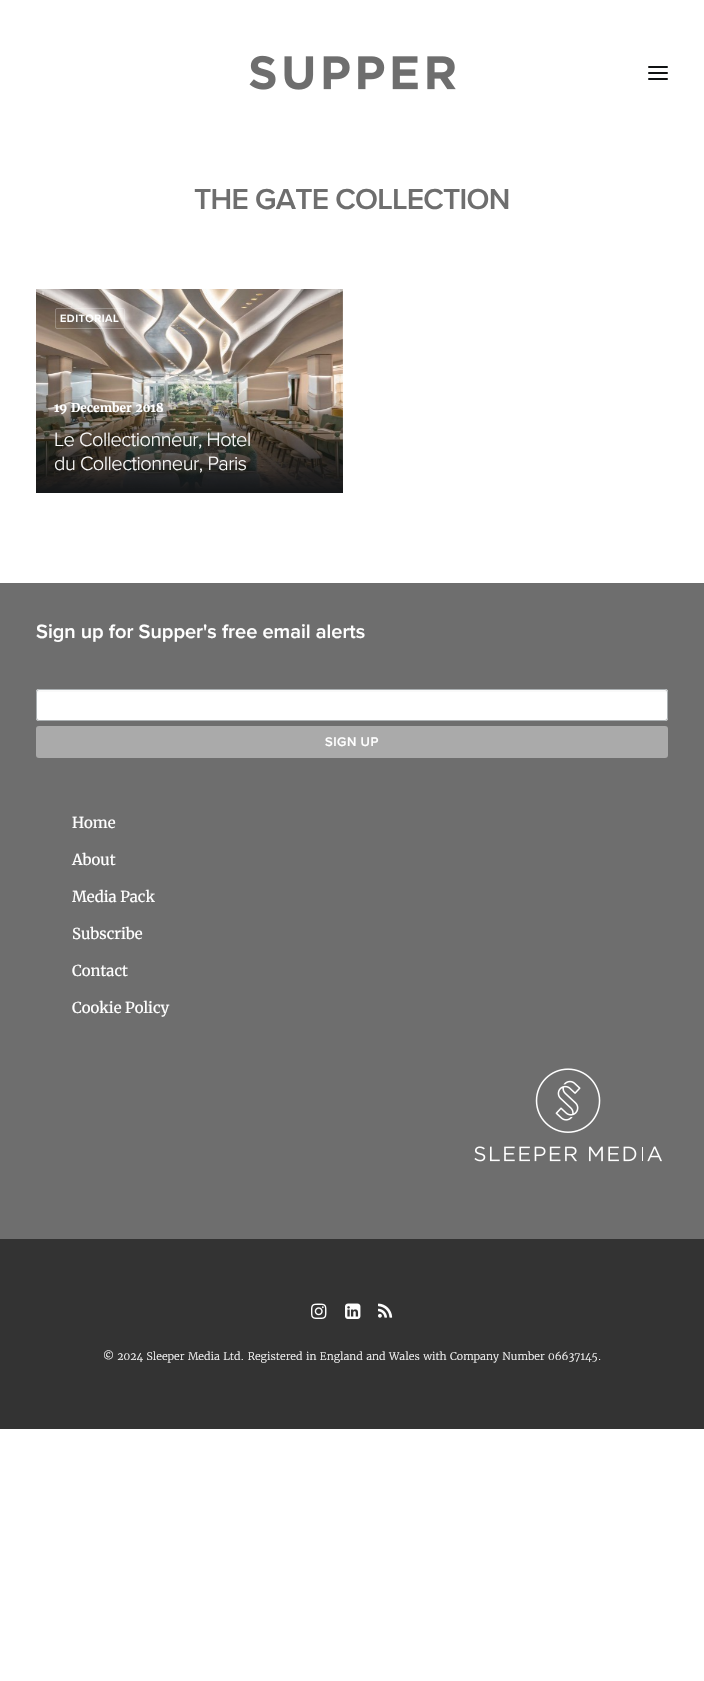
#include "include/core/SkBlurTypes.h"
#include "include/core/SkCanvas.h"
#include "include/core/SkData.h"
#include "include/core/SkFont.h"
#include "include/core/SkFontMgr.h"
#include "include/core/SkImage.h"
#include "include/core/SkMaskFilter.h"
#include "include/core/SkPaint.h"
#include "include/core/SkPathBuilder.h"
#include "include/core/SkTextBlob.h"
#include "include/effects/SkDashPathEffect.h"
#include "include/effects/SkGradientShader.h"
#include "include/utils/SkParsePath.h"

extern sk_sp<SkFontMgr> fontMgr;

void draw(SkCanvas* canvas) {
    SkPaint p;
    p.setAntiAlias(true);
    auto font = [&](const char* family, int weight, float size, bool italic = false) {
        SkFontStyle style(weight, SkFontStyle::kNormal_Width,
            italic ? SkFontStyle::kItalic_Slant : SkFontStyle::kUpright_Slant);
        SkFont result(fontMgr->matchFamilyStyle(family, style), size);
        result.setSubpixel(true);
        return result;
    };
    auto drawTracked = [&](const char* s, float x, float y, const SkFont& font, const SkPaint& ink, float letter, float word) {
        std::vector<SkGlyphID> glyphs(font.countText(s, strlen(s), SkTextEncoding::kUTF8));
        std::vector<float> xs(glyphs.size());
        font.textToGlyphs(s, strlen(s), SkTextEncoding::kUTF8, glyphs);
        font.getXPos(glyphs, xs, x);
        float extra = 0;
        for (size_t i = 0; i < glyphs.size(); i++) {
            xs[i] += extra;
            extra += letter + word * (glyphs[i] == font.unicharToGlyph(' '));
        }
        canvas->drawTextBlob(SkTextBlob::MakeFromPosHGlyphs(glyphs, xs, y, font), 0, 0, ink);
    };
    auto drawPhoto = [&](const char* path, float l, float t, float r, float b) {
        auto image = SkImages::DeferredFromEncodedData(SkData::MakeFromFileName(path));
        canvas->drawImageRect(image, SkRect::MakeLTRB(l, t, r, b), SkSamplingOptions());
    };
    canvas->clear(0xFFFFFFFF);
    drawPhoto("media/1.png", 249, 55, 456, 90);
    p.setColor(0xFF101213);
    canvas->drawRoundRect(SkRect::MakeLTRB(648, 72, 668, 74), 1, 1, p);
    canvas->drawRoundRect(SkRect::MakeLTRB(648, 66, 668, 68), 1, 1, p);
    canvas->drawRoundRect(SkRect::MakeLTRB(648, 78, 668, 80), 1, 1, p);
    auto font1 = font("Proxima Nova", 600, 30);
    p.setColor(0xFF6E6E6E);
    drawTracked("THE GATE COLLECTION", 194, 209, font1, p, -0.75f, 0);
    drawPhoto("media/2.png", 36, 289, 343, 492);
    p.setStyle(SkPaint::kStroke_Style);
    p.setStrokeWidth(1);
    p.setColor(0x40FFFFFF);
    canvas->drawRoundRect(SkRect::MakeLTRB(55.5f, 308.5f, 124.5f, 328.5f), 1.5f, 1.5f, p);
    auto font2 = font("Proxima Nova", 600, 11);
    p.setStyle(SkPaint::kFill_Style);
    p.setColor(0xFFFFFFFF);
    drawTracked("EDITORIAL", 60, 322, font2, p, 0.5f, 0);
    {
        const SkColor colors[] = {0xFF141618, 0x00141618};
        const float stops[] = {0, 0.5f};
        const SkPoint ends[] = {{190, 493}, {190, 289}};
        p.setShader(SkGradientShader::MakeLinear(ends, colors, stops, 2, SkTileMode::kClamp));
        p.setAlpha(255);
    }
    canvas->drawRect(SkRect::MakeLTRB(36, 393, 343, 493), p);
    auto font3 = font("Merriweather", 700, 12);
    p.setShader(nullptr);
    p.setColor(0xFFFFFFFF);
    canvas->drawString("19 December 2018", 54, 412, font3, p);
    auto font4 = font("Proxima Nova", 300, 20);
    drawTracked("Le Collectionneur, Hotel", 54, 446, font4, p, -0.5f, 0);
    drawTracked("du Collectionneur, Paris", 54, 470, font4, p, -0.5f, 0);
    p.setColor(0xFF6E6E6E);
    canvas->drawRect(SkRect::MakeLTRB(0, 583, 704, 1239), p);
    auto font5 = font("Proxima Nova", 600, 20);
    p.setColor(0xFFFFFFFF);
    canvas->drawString("Sign up for Supper's free email alerts", 36, 638, font5, p);
    canvas->drawRoundRect(SkRect::MakeLTRB(36, 689, 668, 721), 3, 3, p);
    p.setColor(0xFFF9F9F9);
    canvas->drawPath(SkPathBuilder().moveTo(39, 692).lineTo(665, 692).cubicTo(666, 692, 667, 693, 667, 694).cubicTo(667, 692, 667, 690, 665, 690).lineTo(39, 690).lineTo(37, 691).lineTo(37, 694).cubicTo(37, 693, 38, 692, 39, 692).close().detach(), p);
    p.setStyle(SkPaint::kStroke_Style);
    p.setColor(0xFFABB0B2);
    canvas->drawRoundRect(SkRect::MakeLTRB(36.5f, 689.5f, 667.5f, 720.5f), 2.5f, 2.5f, p);
    p.setStyle(SkPaint::kFill_Style);
    p.setColor(0xFFAAAAAA);
    canvas->drawRoundRect(SkRect::MakeLTRB(36, 726, 668, 758), 3, 3, p);
    auto font6 = font("Proxima Nova", 600, 13);
    p.setColor(0xFFFFFFFF);
    drawTracked("SIGN UP", 325, 746, font6, p, 0.5f, 0);
    auto font7 = font("Merriweather", 400, 15);
    {
        const struct { const char* s; float x, y; } items[] = {
            {"Home", 72, 828},
            {"About", 72, 865},
            {"Media Pack", 72, 902},
            {"Subscribe", 72, 939},
            {"Contact", 72, 976},
            {"Cookie Policy", 72, 1013},
        };
        for (auto [s, x, y] : items) {
            canvas->drawString(s, x, y, font7, p);
        }
    }
    drawPhoto("media/3.png", 474, 1068, 662, 1162);
    p.setColor(0xFF333333);
    canvas->drawRect(SkRect::MakeLTRB(0, 1239, 704, 1429), p);
    drawPhoto("media/4.png", 311, 1303, 327, 1319);
    drawPhoto("media/5.png", 345, 1303, 361, 1319);
    drawPhoto("media/6.png", 378, 1303, 393, 1318);
    auto font8 = font("Merriweather", 300, 10.5f);
    p.setColor(0xFFFFFFFF);
    canvas->drawString("© 2024 Sleeper Media Ltd. Registered in England and Wales with Company Number 06637145.", 103, 1360, font8, p);
}
